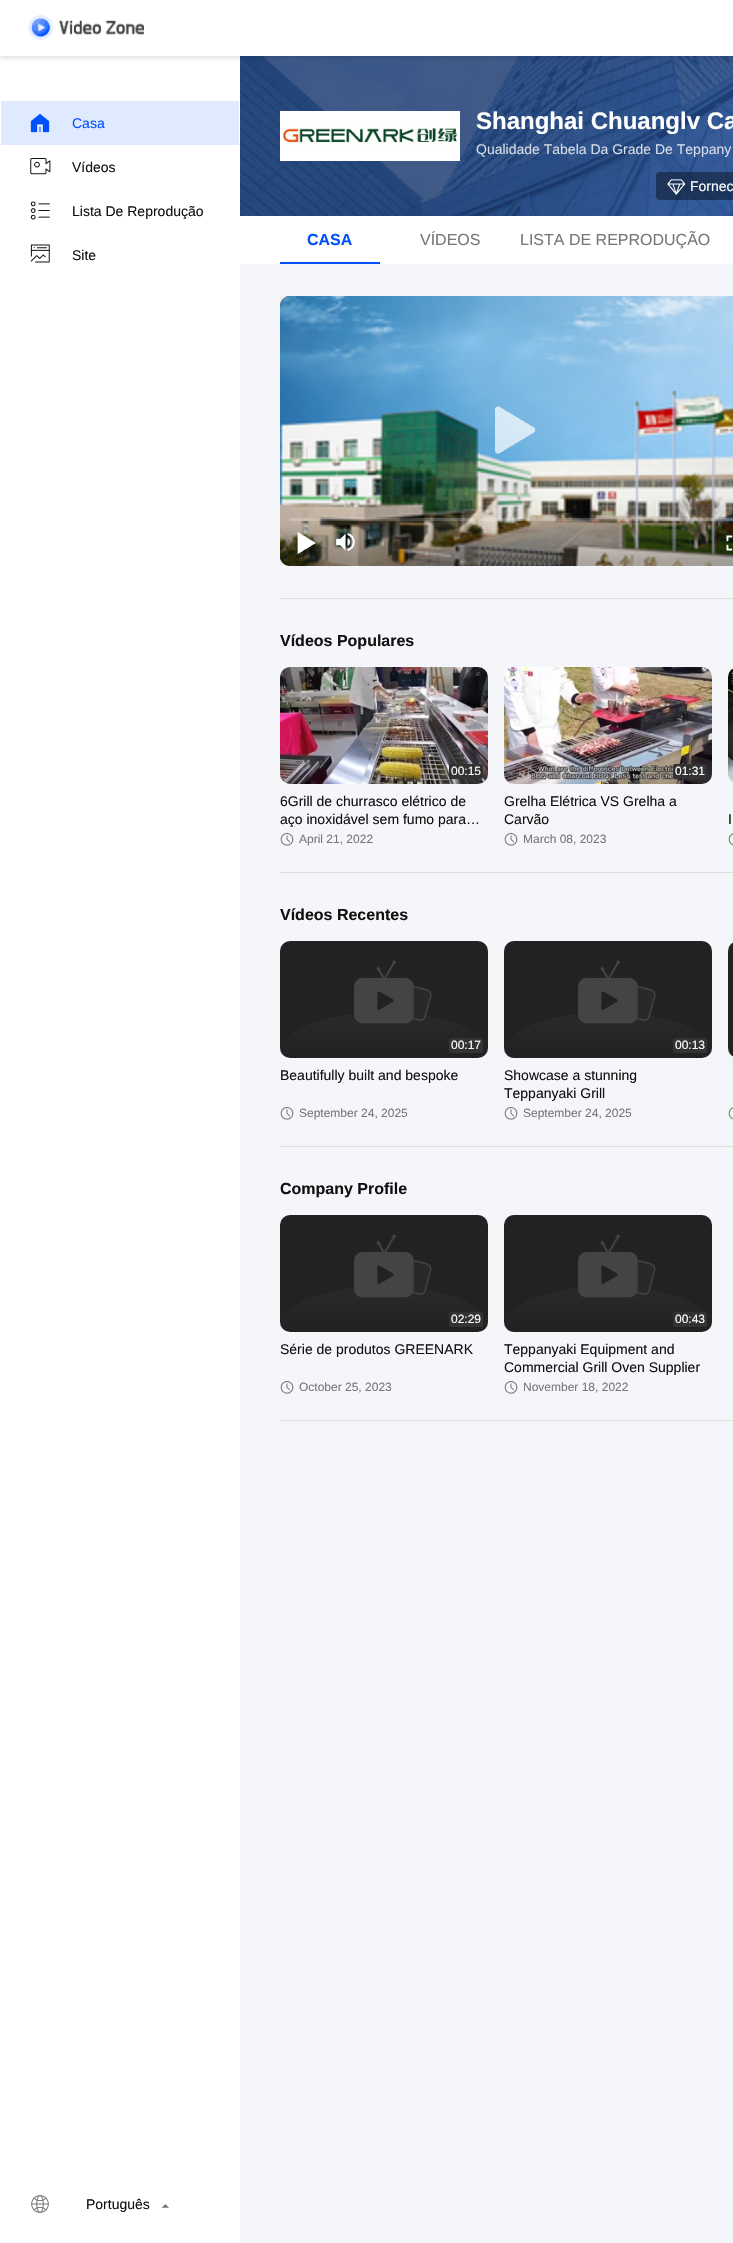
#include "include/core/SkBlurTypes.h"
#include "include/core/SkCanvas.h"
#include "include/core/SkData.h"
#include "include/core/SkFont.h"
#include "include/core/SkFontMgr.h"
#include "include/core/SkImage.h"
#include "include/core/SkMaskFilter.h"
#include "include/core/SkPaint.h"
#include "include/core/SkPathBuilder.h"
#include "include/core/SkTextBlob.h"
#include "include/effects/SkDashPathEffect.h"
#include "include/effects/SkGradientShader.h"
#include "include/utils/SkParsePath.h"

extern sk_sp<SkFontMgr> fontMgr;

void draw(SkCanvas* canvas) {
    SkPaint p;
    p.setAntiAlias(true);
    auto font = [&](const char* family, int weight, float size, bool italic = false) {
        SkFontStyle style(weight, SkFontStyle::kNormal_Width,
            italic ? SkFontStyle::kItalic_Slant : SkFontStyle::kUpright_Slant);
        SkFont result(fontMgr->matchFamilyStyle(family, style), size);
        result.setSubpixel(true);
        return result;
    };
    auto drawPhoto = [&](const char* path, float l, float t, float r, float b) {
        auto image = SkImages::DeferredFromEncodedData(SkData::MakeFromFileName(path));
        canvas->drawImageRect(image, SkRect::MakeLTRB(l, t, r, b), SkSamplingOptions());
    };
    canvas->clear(0xFFFFFFFF);
    drawPhoto("media/8.png", 240, 56, 733, 216);
    p.setColor(0x1F000000);
    p.setMaskFilter(SkMaskFilter::MakeBlur(kNormal_SkBlurStyle, 2));
    canvas->drawRect(SkRect::MakeLTRB(0, 2, 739, 58), p);
    p.setMaskFilter(nullptr);
    p.setColor(0xFFFFFFFF);
    canvas->drawRect(SkRect::MakeLTRB(0, 0, 733, 56), p);
    drawPhoto("media/1.png", 28, 15, 144, 40);
    p.setColor(0xFFE0EAFF);
    canvas->drawRect(SkRect::MakeLTRB(1, 101, 239, 145), p);
    drawPhoto("media/2.png", 30, 114, 50, 133);
    auto font1 = font("Liberation Sans", 400, 14);
    p.setColor(0xFF0051FF);
    canvas->drawString("Casa", 72, 128, font1, p);
    drawPhoto("media/3.png", 30, 158, 51, 175);
    p.setColor(0xFF111111);
    canvas->drawString("Vídeos", 72, 172, font1, p);
    drawPhoto("media/4.png", 30, 201, 50, 220);
    canvas->drawString("Lista De Reprodução", 72, 216, font1, p);
    drawPhoto("media/5.png", 30, 244, 50, 263);
    canvas->drawString("Site", 72, 260, font1, p);
    drawPhoto("media/6.png", 31, 2195, 49, 2213);
    canvas->drawString("Português", 86, 2209, font1, p);
    drawPhoto("media/7.png", 161, 2204, 170, 2208);
    p.setColor(0xFFF4F6F9);
    canvas->drawRect(SkRect::MakeLTRB(240, 264, 733, 2243), p);
    drawPhoto("media/9.png", 280, 111, 460, 161);
    auto font2 = font("Liberation Sans", 700, 24);
    p.setColor(0xFFFFFFFF);
    canvas->drawString("Shanghai Chuanglv Ca", 476, 129, font2, p);
    p.setColor(0xFFD5DCE7);
    canvas->drawString("Qualidade Tabela Da Grade De Teppany", 476, 154, font1, p);
    p.setColor(0x66000000);
    canvas->drawRoundRect(SkRect::MakeLTRB(656, 172, 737, 200), 4, 4, p);
    drawPhoto("media/10.png", 667, 179, 686, 195);
    p.setColor(0xFFFFFFFF);
    canvas->drawString("Fornec", 690, 191, font1, p);
    auto font3 = font("Liberation Sans", 700, 16);
    p.setColor(0xFF0051FF);
    canvas->drawString("CASA", 307, 245, font3, p);
    canvas->drawRect(SkRect::MakeLTRB(280, 262, 380, 264), p);
    auto font4 = font("Liberation Sans", 400, 16);
    p.setColor(0xFF777777);
    canvas->drawString("VÍDEOS", 420, 245, font4, p);
    canvas->drawString("LISTA DE REPRODUÇÃO", 520, 245, font4, p);
    p.setColor(0xFFDDDDDD);
    canvas->drawRect(SkRect::MakeLTRB(280, 598, 733, 599), p);
    p.setColor(0xFFEEEEEE);
    canvas->drawRect(SkRect::MakeLTRB(280, 296, 290, 566), p);
    p.setColor(0xFF000000);
    canvas->drawRoundRect(SkRect::MakeLTRB(280, 296, 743, 566), 10, 10, p);
    drawPhoto("media/11.png", 280, 296, 733, 566);
    drawPhoto("media/12.png", 495, 406, 536, 454);
    {
        const SkColor colors[] = {0x4D0E0E0D, 0x0D0E0E0E, 0x000E0E0E};
        const float stops[] = {0.05f, 0.6f, 1};
        const SkPoint ends[] = {{520, 566}, {520, 496}};
        p.setShader(SkGradientShader::MakeLinear(ends, colors, stops, 3, SkTileMode::kClamp));
        p.setAlpha(255);
    }
    canvas->drawPath(SkPathBuilder().moveTo(280, 496).lineTo(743, 496).lineTo(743, 556).cubicTo(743, 561.5f, 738.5f, 566, 733, 566).lineTo(290, 566).cubicTo(284.5f, 566, 280, 561.5f, 280, 556).close().detach(), p);
    p.setShader(nullptr);
    p.setColor(0x33FFFFFF);
    canvas->drawRect(SkRect::MakeLTRB(290, 518, 733, 521), p);
    drawPhoto("media/13.png", 297, 531, 316, 554);
    drawPhoto("media/14.png", 336, 533, 355, 551);
    drawPhoto("media/15.png", 726, 535, 733, 551);
    p.setColor(0xFFDDDDDD);
    canvas->drawRect(SkRect::MakeLTRB(280, 872, 733, 873), p);
    p.setColor(0xFF111111);
    canvas->drawString("Vídeos Populares", 280, 646, font3, p);
    drawPhoto("media/16.png", 280, 667, 488, 784);
    p.setColor(0xFF333333);
    canvas->drawRoundRect(SkRect::MakeLTRB(449, 764, 483, 779), 2, 2, p);
    auto font5 = font("Liberation Sans", 400, 12);
    p.setColor(0xFFFFFFFF);
    canvas->drawString("00:15", 451, 775, font5, p);
    p.setColor(0xFF111111);
    canvas->drawString("6Grill de churrasco elétrico de", 280, 806, font1, p);
    canvas->drawString("aço inoxidável sem fumo para…", 280, 824, font1, p);
    drawPhoto("media/17.png", 280, 833, 294, 846);
    p.setColor(0xFF777777);
    canvas->drawString("April 21, 2022", 299, 843, font5, p);
    drawPhoto("media/18.png", 504, 667, 712, 784);
    p.setColor(0xFF333333);
    canvas->drawRoundRect(SkRect::MakeLTRB(673, 764, 707, 779), 2, 2, p);
    p.setColor(0xFFFFFFFF);
    canvas->drawString("01:31", 675, 775, font5, p);
    p.setColor(0xFF111111);
    canvas->drawString("Grelha Elétrica VS Grelha a", 504, 806, font1, p);
    canvas->drawString("Carvão", 504, 824, font1, p);
    drawPhoto("media/17.png", 504, 833, 518, 846);
    p.setColor(0xFF777777);
    canvas->drawString("March 08, 2023", 523, 843, font5, p);
    drawPhoto("media/19.png", 728, 668, 733, 782);
    p.setColor(0xFF111111);
    canvas->drawString("I", 728, 824, font1, p);
    drawPhoto("media/20.png", 728, 833, 733, 846);
    p.setColor(0xFFDDDDDD);
    canvas->drawRect(SkRect::MakeLTRB(280, 1146, 733, 1147), p);
    p.setColor(0xFF111111);
    canvas->drawString("Vídeos Recentes", 280, 920, font3, p);
    drawPhoto("media/21.png", 280, 941, 488, 1058);
    p.setColor(0xFF333333);
    canvas->drawRoundRect(SkRect::MakeLTRB(449, 1038, 483, 1053), 2, 2, p);
    p.setColor(0xFFFFFFFF);
    canvas->drawString("00:17", 451, 1049, font5, p);
    p.setColor(0xFF111111);
    canvas->drawString("Beautifully built and bespoke", 280, 1080, font1, p);
    drawPhoto("media/17.png", 280, 1107, 294, 1120);
    p.setColor(0xFF777777);
    canvas->drawString("September 24, 2025", 299, 1117, font5, p);
    drawPhoto("media/22.png", 504, 941, 712, 1058);
    p.setColor(0xFF333333);
    canvas->drawRoundRect(SkRect::MakeLTRB(673, 1038, 707, 1053), 2, 2, p);
    p.setColor(0xFFFFFFFF);
    canvas->drawString("00:13", 675, 1049, font5, p);
    p.setColor(0xFF111111);
    canvas->drawString("Showcase a stunning", 504, 1080, font1, p);
    canvas->drawString("Teppanyaki Grill", 504, 1098, font1, p);
    drawPhoto("media/17.png", 504, 1107, 518, 1120);
    p.setColor(0xFF777777);
    canvas->drawString("September 24, 2025", 523, 1117, font5, p);
    drawPhoto("media/23.png", 728, 942, 733, 1057);
    drawPhoto("media/20.png", 728, 1107, 733, 1120);
    p.setColor(0xFFDDDDDD);
    canvas->drawRect(SkRect::MakeLTRB(280, 1420, 733, 1421), p);
    p.setColor(0xFF111111);
    canvas->drawString("Company Profile", 280, 1194, font3, p);
    drawPhoto("media/21.png", 280, 1215, 488, 1332);
    p.setColor(0xFF333333);
    canvas->drawRoundRect(SkRect::MakeLTRB(449, 1312, 483, 1327), 2, 2, p);
    p.setColor(0xFFFFFFFF);
    canvas->drawString("02:29", 451, 1323, font5, p);
    p.setColor(0xFF111111);
    canvas->drawString("Série de produtos GREENARK", 280, 1354, font1, p);
    drawPhoto("media/17.png", 280, 1381, 294, 1394);
    p.setColor(0xFF777777);
    canvas->drawString("October 25, 2023", 299, 1391, font5, p);
    drawPhoto("media/22.png", 504, 1215, 712, 1332);
    p.setColor(0xFF333333);
    canvas->drawRoundRect(SkRect::MakeLTRB(673, 1312, 707, 1327), 2, 2, p);
    p.setColor(0xFFFFFFFF);
    canvas->drawString("00:43", 675, 1323, font5, p);
    p.setColor(0xFF111111);
    canvas->drawString("Teppanyaki Equipment and", 504, 1354, font1, p);
    canvas->drawString("Commercial Grill Oven Supplier", 504, 1372, font1, p);
    drawPhoto("media/17.png", 504, 1381, 518, 1394);
    p.setColor(0xFF777777);
    canvas->drawString("November 18, 2022", 523, 1391, font5, p);
}
